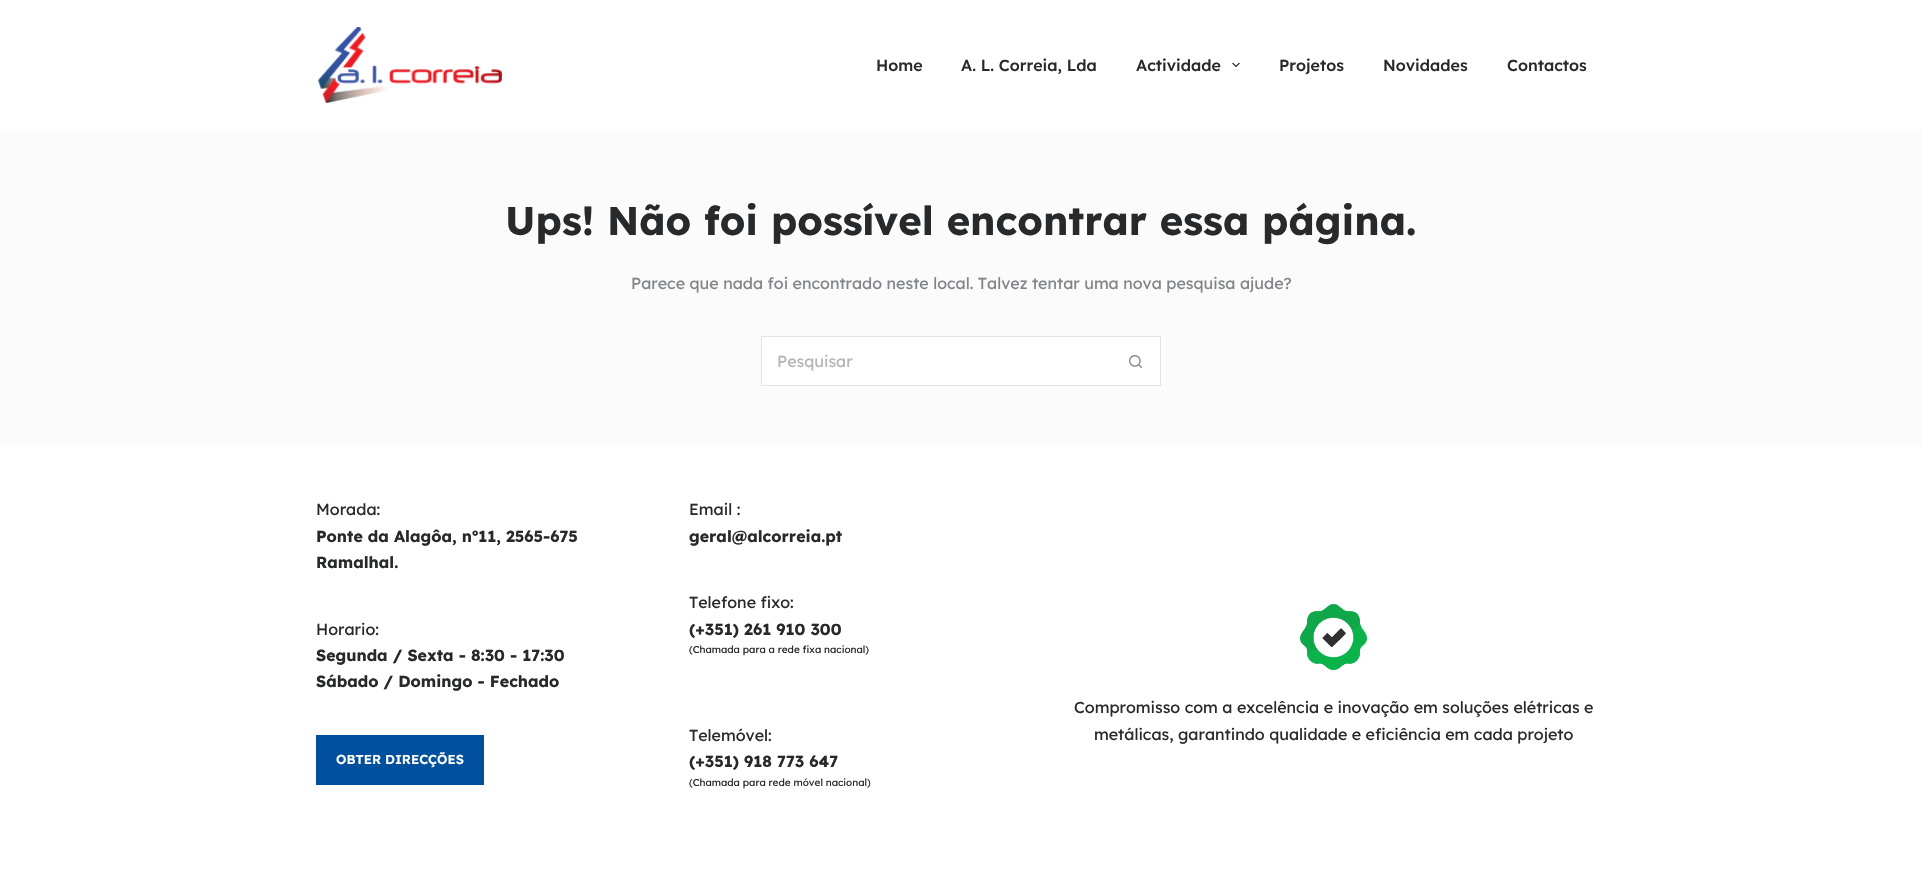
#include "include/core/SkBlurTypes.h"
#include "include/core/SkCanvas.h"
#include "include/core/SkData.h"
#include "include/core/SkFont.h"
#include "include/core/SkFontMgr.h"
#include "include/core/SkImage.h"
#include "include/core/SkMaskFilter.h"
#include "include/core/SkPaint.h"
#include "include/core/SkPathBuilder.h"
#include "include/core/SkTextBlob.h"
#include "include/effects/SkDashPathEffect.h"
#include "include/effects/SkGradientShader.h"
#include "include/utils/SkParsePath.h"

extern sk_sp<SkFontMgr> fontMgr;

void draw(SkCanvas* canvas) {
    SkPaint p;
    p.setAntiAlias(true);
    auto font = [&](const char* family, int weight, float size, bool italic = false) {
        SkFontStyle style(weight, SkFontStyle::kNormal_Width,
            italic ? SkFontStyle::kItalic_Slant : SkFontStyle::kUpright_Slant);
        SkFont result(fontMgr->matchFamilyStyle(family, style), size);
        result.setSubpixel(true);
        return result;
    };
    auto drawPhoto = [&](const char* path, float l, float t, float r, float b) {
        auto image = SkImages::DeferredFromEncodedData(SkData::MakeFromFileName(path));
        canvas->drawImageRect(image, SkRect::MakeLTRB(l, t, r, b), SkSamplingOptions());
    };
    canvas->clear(0xFFFBFBFC);
    p.setColor(0xFFFFFFFF);
    canvas->drawRect(SkRect::MakeLTRB(0, 0, 1922, 130), p);
    drawPhoto("media/1.png", 318, 27, 502, 103);
    auto font1 = font("Lexend", 500, 16);
    p.setColor(0xFF28292A);
    {
        const struct { const char* s; float x, y; } items[] = {
            {"Home", 876, 71},
            {"A. L. Correia, Lda", 961, 71},
            {"Actividade", 1136, 71},
        };
        for (auto [s, x, y] : items) {
            canvas->drawString(s, x, y, font1, p);
        }
    }
    drawPhoto("media/2.png", 1232, 62, 1240, 68);
    {
        const struct { const char* s; float x, y; } items[] = {
            {"Projetos", 1279, 71},
            {"Novidades", 1383, 71},
            {"Contactos", 1507, 71},
        };
        for (auto [s, x, y] : items) {
            canvas->drawString(s, x, y, font1, p);
        }
    }
    auto font2 = font("Lexend", 700, 40);
    canvas->drawString("Ups! Não foi possível encontrar essa página.", 505, 235, font2, p);
    auto font3 = font("Lexend", 400, 16);
    p.setColor(0xFF828487);
    canvas->drawString("Parece que nada foi encontrado neste local. Talvez tentar uma nova pesquisa ajude?", 631, 289, font3, p);
    p.setColor(0xFFFFFFFF);
    canvas->drawRect(SkRect::MakeLTRB(761, 336, 1161, 386), p);
    p.setColor(0xFFE1E3E4);
    canvas->drawPath(SkPathBuilder().moveTo(761, 336).lineTo(1111, 336).lineTo(1111, 337).lineTo(762, 337).close().detach(), p);
    canvas->drawPath(SkPathBuilder().moveTo(1111, 386).lineTo(761, 386).lineTo(762, 385).lineTo(1111, 385).close().detach(), p);
    p.setColor(0x33677178);
    canvas->drawPath(SkPathBuilder().moveTo(761, 386).lineTo(761, 336).lineTo(762, 337).lineTo(762, 385).close().detach(), p);
    p.setColor(0xFFB4B5B7);
    canvas->drawString("Pesquisar", 777, 367, font3, p);
    p.setColor(0xFFE1E3E4);
    canvas->drawPath(SkPathBuilder().moveTo(1111, 336).lineTo(1161, 336).lineTo(1160, 337).lineTo(1111, 337).close().detach(), p);
    p.setColor(0x33677178);
    canvas->drawPath(SkPathBuilder().moveTo(1161, 336).lineTo(1161, 386).lineTo(1160, 385).lineTo(1160, 337).close().detach(), p);
    canvas->drawPath(SkPathBuilder().moveTo(1161, 386).lineTo(1111, 386).lineTo(1111, 385).lineTo(1160, 385).close().detach(), p);
    drawPhoto("media/3.png", 1129, 355, 1142, 368);
    p.setColor(0xFFFFFFFF);
    canvas->drawRect(SkRect::MakeLTRB(0, 446, 1922, 882), p);
    p.setColor(0xFF28292A);
    canvas->drawString("Morada:", 316, 515, font3, p);
    auto font4 = font("Lexend", 700, 16);
    canvas->drawString("Ponte da Alagôa, nº11, 2565-675", 316, 542, font4, p);
    canvas->drawString("Ramalhal.", 316, 568, font4, p);
    canvas->drawString("Horario:", 316, 635, font3, p);
    canvas->drawString("Segunda / Sexta - 8:30 - 17:30", 316, 661, font4, p);
    canvas->drawString("Sábado / Domingo - Fechado", 316, 687, font4, p);
    p.setColor(0xFF00509D);
    canvas->drawRect(SkRect::MakeLTRB(316, 735, 484, 785), p);
    auto font5 = font("Lexend", 600, 13);
    p.setColor(0xFFFFFFFF);
    canvas->drawString("OBTER DIRECÇÕES", 336, 764, font5, p);
    p.setColor(0xFF28292A);
    canvas->drawString("Email :", 689, 515, font3, p);
    canvas->drawString("geral@alcorreia.pt", 689, 542, font4, p);
    canvas->drawString("Telefone fixo:", 689, 608, font3, p);
    canvas->drawString("(+351) 261 910 300", 689, 635, font4, p);
    auto font6 = font("Lexend", 400, 10);
    canvas->drawString("(Chamada para a rede fixa nacional)", 689, 653, font6, p);
    canvas->drawString("Telemóvel:", 689, 741, font3, p);
    canvas->drawString("(+351) 918 773 647", 689, 767, font4, p);
    canvas->drawString("(Chamada para rede móvel nacional)", 689, 786, font6, p);
    drawPhoto("media/4.png", 1300, 604, 1367, 670);
    canvas->drawString("Compromisso com a excelência e inovação em soluções elétricas e", 1074, 713, font3, p);
    canvas->drawString("metálicas, garantindo qualidade e eficiência em cada projeto", 1094, 740, font3, p);
}
